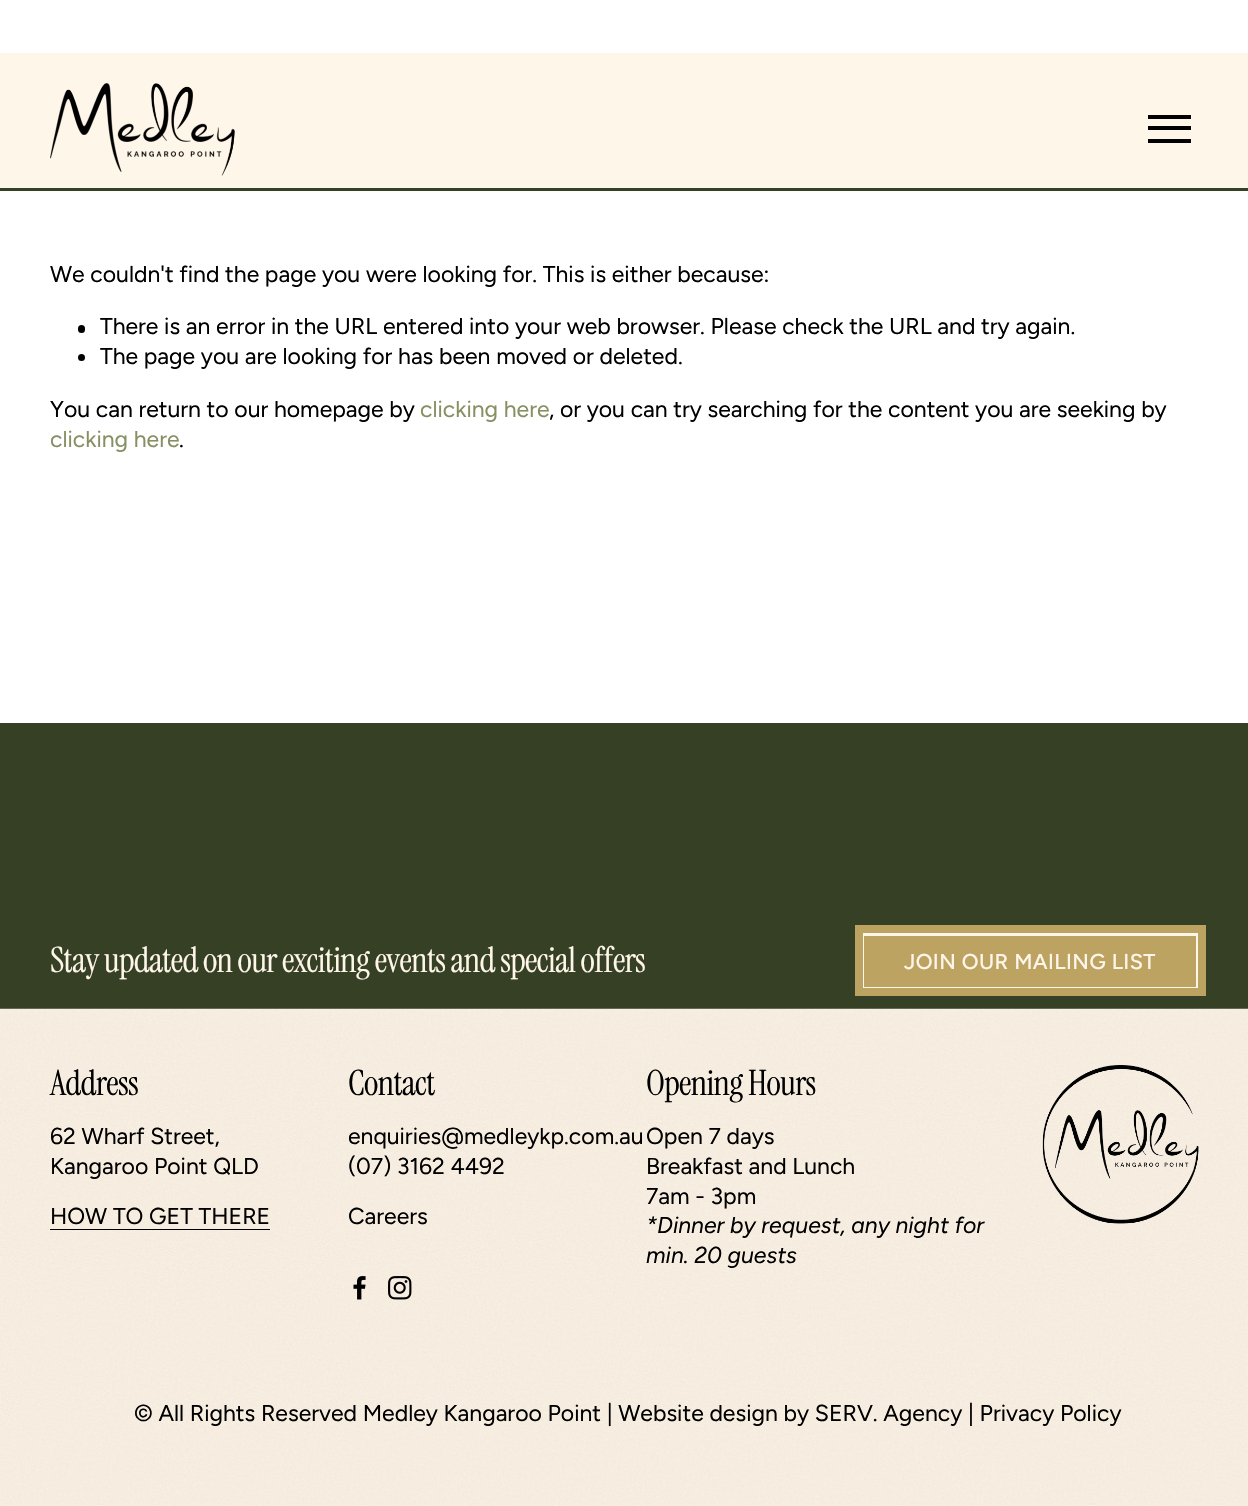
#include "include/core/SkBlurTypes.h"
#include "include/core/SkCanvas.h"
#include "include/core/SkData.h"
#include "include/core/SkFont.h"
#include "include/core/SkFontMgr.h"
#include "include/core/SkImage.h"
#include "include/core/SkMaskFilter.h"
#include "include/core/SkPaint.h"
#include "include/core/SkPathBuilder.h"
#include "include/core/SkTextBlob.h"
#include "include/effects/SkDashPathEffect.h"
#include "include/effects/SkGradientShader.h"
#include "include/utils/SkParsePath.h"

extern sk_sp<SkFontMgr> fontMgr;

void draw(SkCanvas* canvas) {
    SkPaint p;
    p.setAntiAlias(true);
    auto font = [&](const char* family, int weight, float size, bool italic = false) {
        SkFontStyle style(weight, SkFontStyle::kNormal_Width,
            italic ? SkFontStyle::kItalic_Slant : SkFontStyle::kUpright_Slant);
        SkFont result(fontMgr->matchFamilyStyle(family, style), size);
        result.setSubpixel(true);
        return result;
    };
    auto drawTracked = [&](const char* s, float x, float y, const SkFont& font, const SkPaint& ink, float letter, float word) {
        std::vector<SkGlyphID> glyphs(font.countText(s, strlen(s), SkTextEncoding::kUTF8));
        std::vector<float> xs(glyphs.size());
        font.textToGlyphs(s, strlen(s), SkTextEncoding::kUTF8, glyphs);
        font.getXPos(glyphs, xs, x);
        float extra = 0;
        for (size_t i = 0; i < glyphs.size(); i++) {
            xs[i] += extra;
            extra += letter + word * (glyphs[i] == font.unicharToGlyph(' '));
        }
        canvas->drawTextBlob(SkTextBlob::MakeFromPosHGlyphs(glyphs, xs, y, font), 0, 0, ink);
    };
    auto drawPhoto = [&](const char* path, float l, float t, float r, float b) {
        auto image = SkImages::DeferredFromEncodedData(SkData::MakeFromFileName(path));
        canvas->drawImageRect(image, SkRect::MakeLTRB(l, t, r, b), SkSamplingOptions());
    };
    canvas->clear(0xFFFFFFFF);
    p.setColor(0xFFFFF6EA);
    canvas->drawRect(SkRect::MakeLTRB(0, 53, 1248, 188), p);
    drawPhoto("media/1.png", 50, 83, 235, 176);
    {
        const struct { float l, t, r, b; SkColor color; } items[] = {
            {1148, 115, 1191, 119, 0xFF000000},
            {1148, 126, 1191, 130, 0xFF000000},
            {1148, 139, 1191, 143, 0xFF000000},
            {0, 188, 1248, 191, 0xFF364025},
        };
        for (auto [l, t, r, b, color] : items) {
            p.setColor(color);
            canvas->drawRect(SkRect::MakeLTRB(l, t, r, b), p);
        }
    }
    auto font1 = font("Figtree", 400, 23);
    p.setColor(0xFF000000);
    canvas->drawString("We couldn't find the page you were looking for. This is either because:", 50, 282, font1, p);
    canvas->drawRoundRect(SkRect::MakeLTRB(78, 325, 85, 333), 3.5f, 3.5f, p);
    canvas->drawString("There is an error in the URL entered into your web browser. Please check the URL and try again.", 100, 334, font1, p);
    canvas->drawCircle(81.5f, 357.5f, 3.5f, p);
    canvas->drawString("The page you are looking for has been moved or deleted.", 100, 364, font1, p);
    canvas->drawString("You can return to our homepage by", 50, 417, font1, p);
    p.setColor(0xFF879063);
    canvas->drawString("clicking here", 420, 417, font1, p);
    p.setColor(0xFF000000);
    canvas->drawString(", or you can try searching for the content you are seeking by", 549, 417, font1, p);
    p.setColor(0xFF879063);
    canvas->drawString("clicking here", 50, 447, font1, p);
    p.setColor(0xFF000000);
    canvas->drawString(".", 179, 447, font1, p);
    p.setColor(0xFF364025);
    canvas->drawRect(SkRect::MakeLTRB(0, 723, 1248, 1009), p);
    auto font2 = font("Instrument Serif", 400, 35);
    p.setColor(0xFFFFF6EA);
    drawTracked("Stay updated on our exciting events and special offers", 50, 972, font2, p, -0.7f, 0);
    p.setColor(0xFFBDA362);
    canvas->drawRect(SkRect::MakeLTRB(862.5f, 934.5f, 1197.5f, 988.5f), p);
    p.setStyle(SkPaint::kStroke_Style);
    p.setStrokeWidth(3);
    p.setColor(0xFFFFF6EA);
    canvas->drawRect(SkRect::MakeLTRB(862.5f, 934.5f, 1197.5f, 988.5f), p);
    p.setStrokeWidth(8);
    p.setColor(0xFFBDA362);
    canvas->drawRect(SkRect::MakeLTRB(859, 929, 1202, 992), p);
    auto font3 = font("Figtree", 500, 21.5f);
    p.setStyle(SkPaint::kFill_Style);
    p.setColor(0xFFFFF6EA);
    drawTracked("JOIN OUR MAILING LIST", 904, 969, font3, p, 0.4f, 0);
    drawPhoto("media/2.png", 0, 1008, 1248, 1506);
    p.setColor(0xFF000000);
    drawTracked("Address", 50, 1095, font2, p, -0.7f, 0);
    {
        const struct { const char* s; float x, y; } items[] = {
            {"62 Wharf Street,", 50, 1144},
            {"Kangaroo Point QLD", 50, 1174},
            {"HOW TO GET THERE", 50, 1224},
        };
        for (auto [s, x, y] : items) {
            canvas->drawString(s, x, y, font1, p);
        }
    }
    canvas->drawRect(SkRect::MakeLTRB(50, 1229, 270, 1230), p);
    drawTracked("Contact", 348, 1095, font2, p, -0.7f, 0);
    {
        const struct { const char* s; float x, y; } items[] = {
            {"enquiries@medleykp.com.au", 348, 1144},
            {"(07) 3162 4492", 348, 1174},
            {"Careers", 348, 1224},
        };
        for (auto [s, x, y] : items) {
            canvas->drawString(s, x, y, font1, p);
        }
    }
    drawPhoto("media/3.png", 353, 1276, 366, 1300);
    drawPhoto("media/4.png", 388, 1276, 412, 1300);
    drawTracked("Opening Hours", 646, 1095, font2, p, -0.7f, 0);
    {
        const struct { const char* s; float x, y; } items[] = {
            {"Open 7 days", 646, 1144},
            {"Breakfast and Lunch", 646, 1174},
            {"7am - 3pm", 646, 1204},
        };
        for (auto [s, x, y] : items) {
            canvas->drawString(s, x, y, font1, p);
        }
    }
    auto font4 = font("Figtree", 400, 23, true);
    canvas->drawString("*Dinner by request, any night for", 646, 1233, font4, p);
    canvas->drawString("min. 20 guests", 646, 1263, font4, p);
    drawPhoto("media/5.png", 1042, 1065, 1199, 1224);
    canvas->drawString("© All Rights Reserved Medley Kangaroo Point | Website design by SERV. Agency | Privacy Policy", 134, 1421, font1, p);
}
